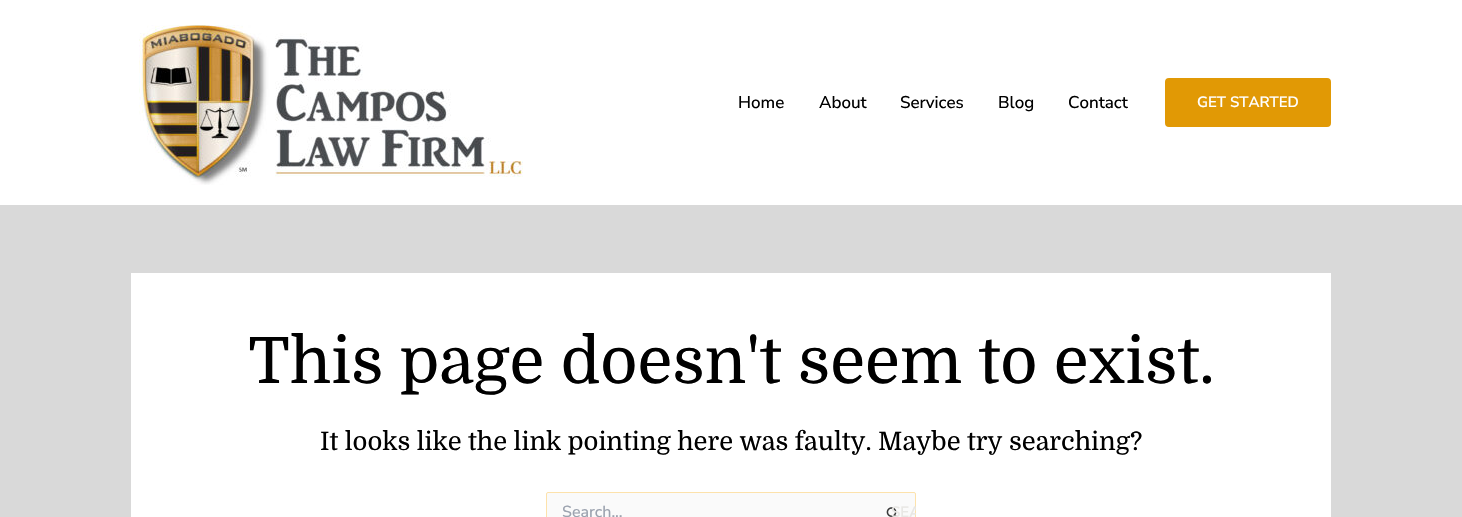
#include "include/core/SkBlurTypes.h"
#include "include/core/SkCanvas.h"
#include "include/core/SkData.h"
#include "include/core/SkFont.h"
#include "include/core/SkFontMgr.h"
#include "include/core/SkImage.h"
#include "include/core/SkMaskFilter.h"
#include "include/core/SkPaint.h"
#include "include/core/SkPathBuilder.h"
#include "include/core/SkTextBlob.h"
#include "include/effects/SkDashPathEffect.h"
#include "include/effects/SkGradientShader.h"
#include "include/utils/SkParsePath.h"

extern sk_sp<SkFontMgr> fontMgr;

void draw(SkCanvas* canvas) {
    SkPaint p;
    p.setAntiAlias(true);
    auto font = [&](const char* family, int weight, float size, bool italic = false) {
        SkFontStyle style(weight, SkFontStyle::kNormal_Width,
            italic ? SkFontStyle::kItalic_Slant : SkFontStyle::kUpright_Slant);
        SkFont result(fontMgr->matchFamilyStyle(family, style), size);
        result.setSubpixel(true);
        return result;
    };
    auto drawPhoto = [&](const char* path, float l, float t, float r, float b) {
        auto image = SkImages::DeferredFromEncodedData(SkData::MakeFromFileName(path));
        canvas->drawImageRect(image, SkRect::MakeLTRB(l, t, r, b), SkSamplingOptions());
    };
    canvas->clear(0xFFD9D9D9);
    p.setColor(0xFFFFFFFF);
    canvas->drawRect(SkRect::MakeLTRB(0, 0, 1462, 205), p);
    drawPhoto("media/1.png", 139, 25, 523, 185);
    auto font1 = font("Nunito Sans", 500, 17);
    p.setColor(0xFF000000);
    {
        const struct { const char* s; float x, y; } items[] = {
            {"Home", 738, 108},
            {"About", 819, 108},
            {"Services", 900, 108},
            {"Blog", 998, 108},
            {"Contact", 1068, 108},
        };
        for (auto [s, x, y] : items) {
            canvas->drawString(s, x, y, font1, p);
        }
    }
    p.setColor(0xFFE19905);
    canvas->drawRoundRect(SkRect::MakeLTRB(1166, 79, 1330, 126), 3, 3, p);
    p.setStyle(SkPaint::kStroke_Style);
    p.setStrokeWidth(2);
    canvas->drawRoundRect(SkRect::MakeLTRB(1166, 79, 1330, 126), 3, 3, p);
    auto font2 = font("Nunito Sans", 600, 15);
    p.setStyle(SkPaint::kFill_Style);
    p.setColor(0xFFFFFFFF);
    canvas->drawString("GET STARTED", 1197, 107, font2, p);
    canvas->drawRect(SkRect::MakeLTRB(131, 273, 1331, 517), p);
    auto font3 = font("Domine", 400, 64);
    p.setColor(0xFF000000);
    canvas->drawString("This page doesn't seem to exist.", 248, 383, font3, p);
    auto font4 = font("Domine", 400, 25.5f);
    canvas->drawString("It looks like the link pointing here was faulty. Maybe try searching?", 320, 450, font4, p);
    p.setColor(0xFFFAFAFA);
    canvas->drawRoundRect(SkRect::MakeLTRB(546.5f, 492.5f, 915.5f, 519.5f), 1.5f, 1.5f, p);
    p.setStyle(SkPaint::kStroke_Style);
    p.setStrokeWidth(1);
    p.setColor(0xFFFDE2AB);
    canvas->drawRoundRect(SkRect::MakeLTRB(546.5f, 492.5f, 915.5f, 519.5f), 1.5f, 1.5f, p);
    auto font5 = font("Nunito Sans", 500, 16);
    p.setStyle(SkPaint::kFill_Style);
    p.setColor(0xFF9CA3AF);
    canvas->drawString("Search...", 562, 517, font5, p);
    drawPhoto("media/2.png", 886, 507, 898, 517);
    canvas->save();
    canvas->clipPath(SkPathBuilder().moveTo(873, 492).lineTo(914, 492).cubicTo(915, 492, 916, 493, 916, 494).lineTo(916, 531).cubicTo(916, 532, 915, 533, 914, 533).lineTo(873, 533).cubicTo(872, 533, 871, 532, 871, 531).lineTo(871, 494).cubicTo(871, 493, 872, 492, 873, 492).close().detach(), true);
    p.setColor(0xFFE8E7E4);
    canvas->drawString("SEA", 891, 517, font2, p);
    canvas->restore();
}
